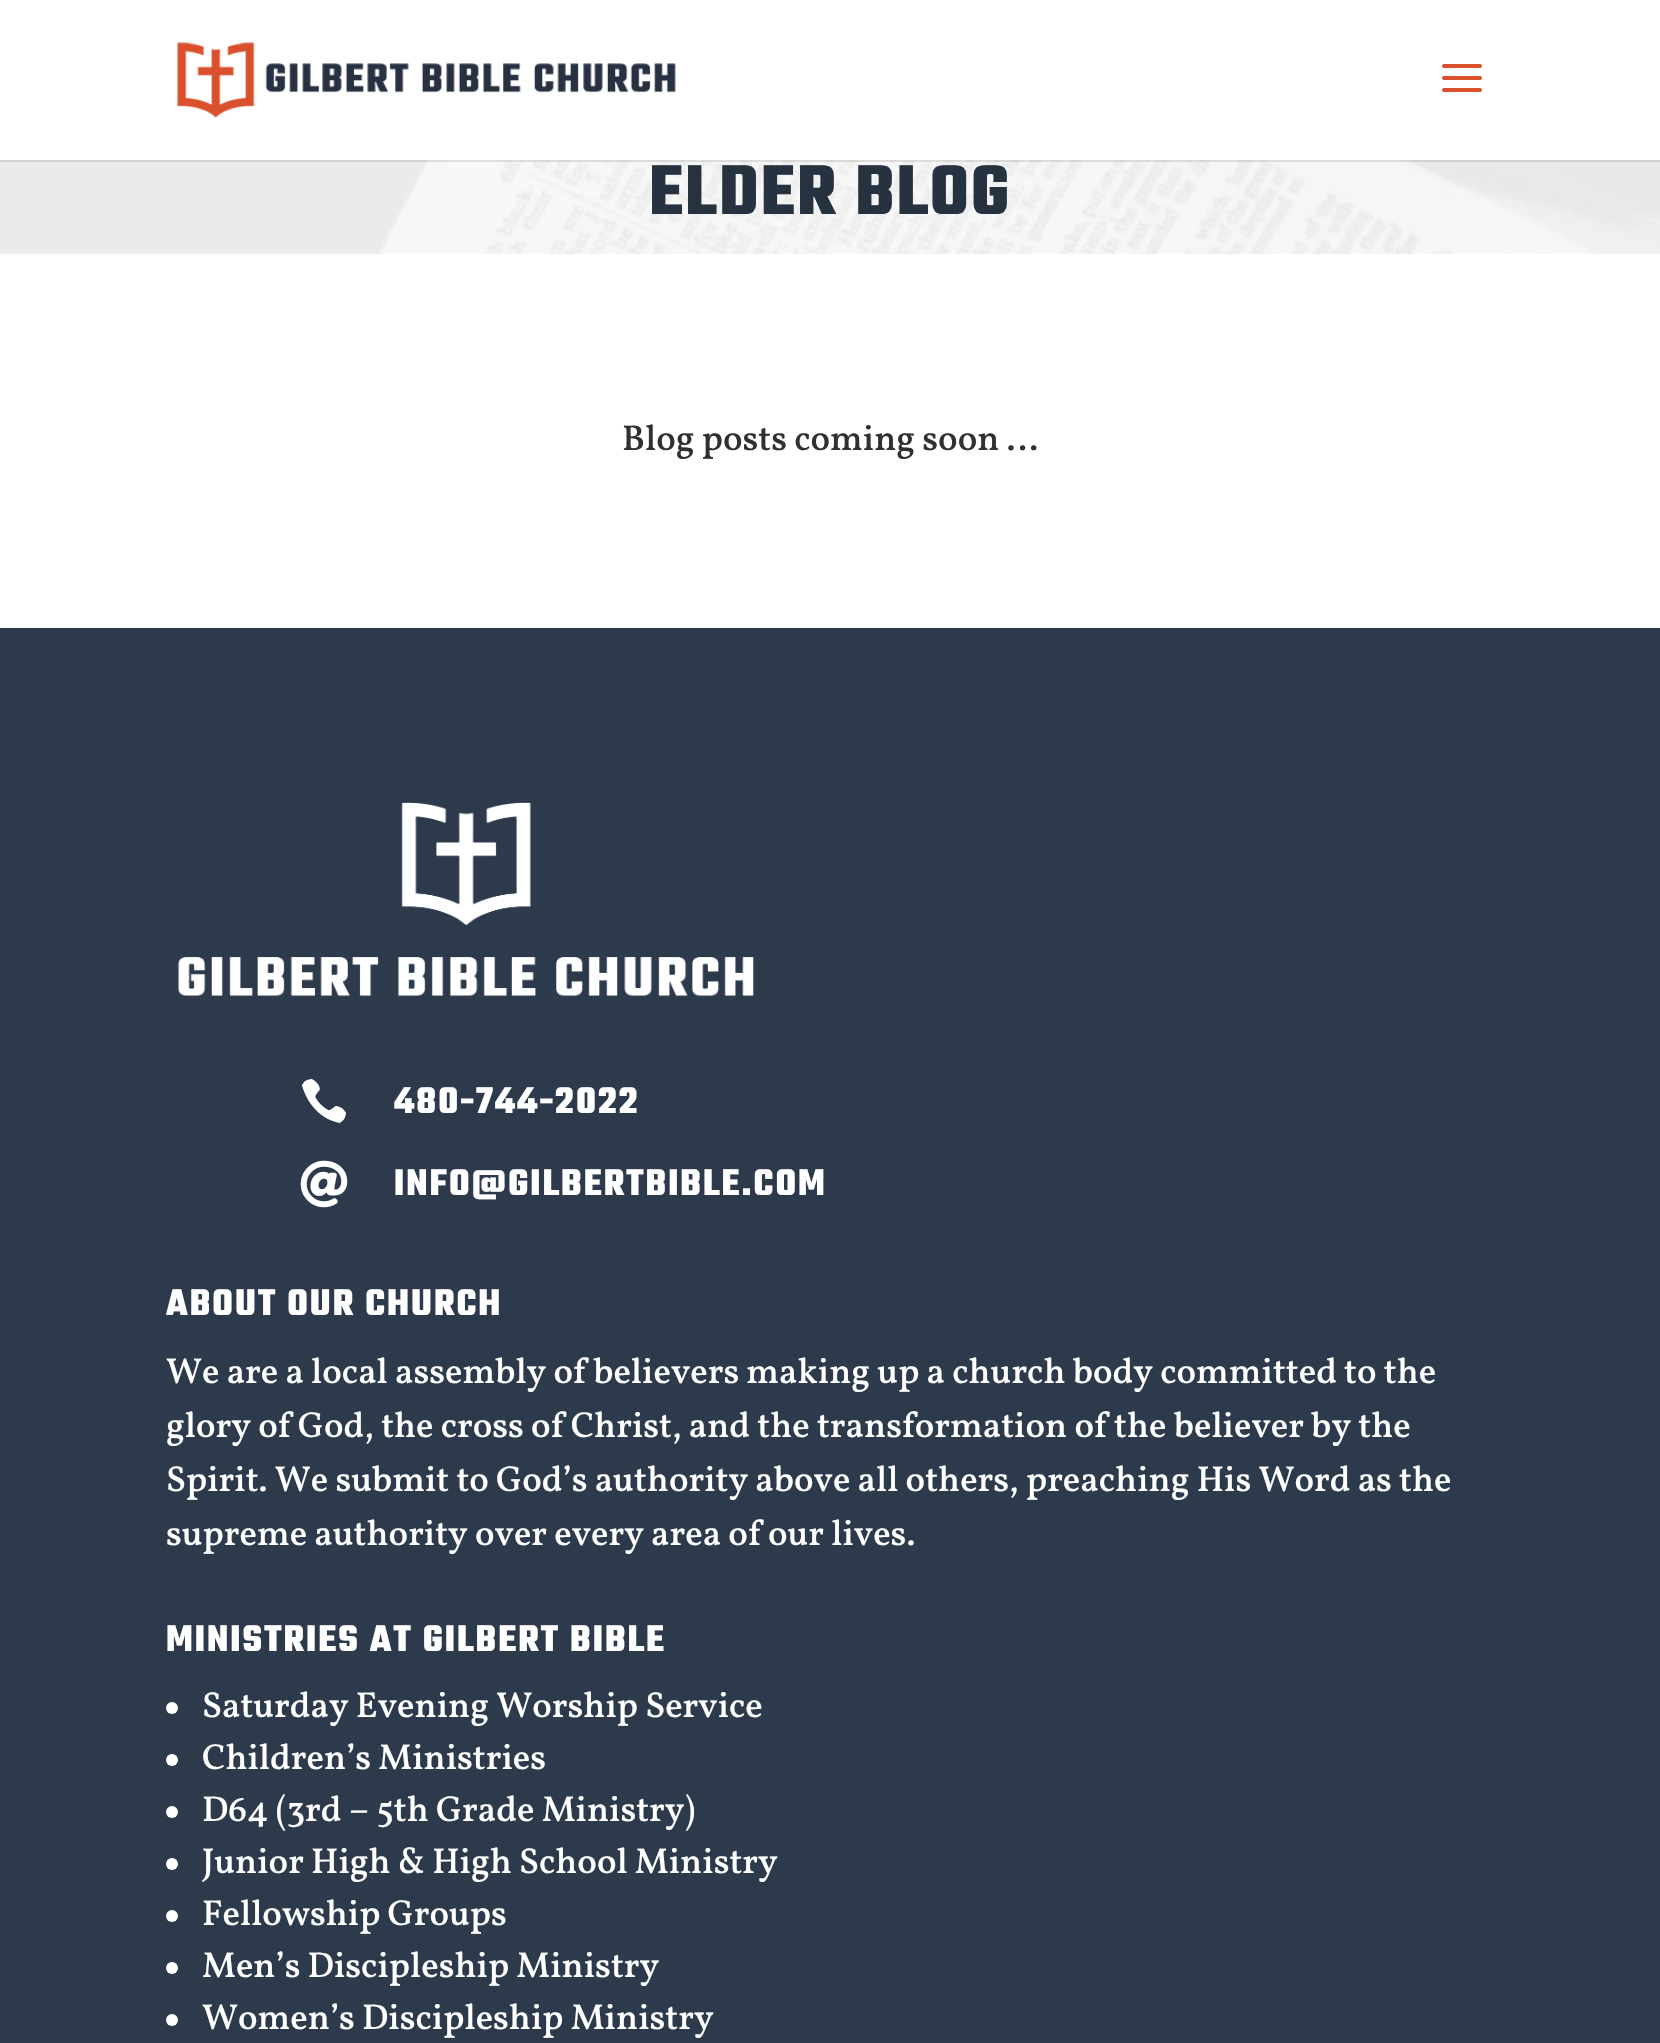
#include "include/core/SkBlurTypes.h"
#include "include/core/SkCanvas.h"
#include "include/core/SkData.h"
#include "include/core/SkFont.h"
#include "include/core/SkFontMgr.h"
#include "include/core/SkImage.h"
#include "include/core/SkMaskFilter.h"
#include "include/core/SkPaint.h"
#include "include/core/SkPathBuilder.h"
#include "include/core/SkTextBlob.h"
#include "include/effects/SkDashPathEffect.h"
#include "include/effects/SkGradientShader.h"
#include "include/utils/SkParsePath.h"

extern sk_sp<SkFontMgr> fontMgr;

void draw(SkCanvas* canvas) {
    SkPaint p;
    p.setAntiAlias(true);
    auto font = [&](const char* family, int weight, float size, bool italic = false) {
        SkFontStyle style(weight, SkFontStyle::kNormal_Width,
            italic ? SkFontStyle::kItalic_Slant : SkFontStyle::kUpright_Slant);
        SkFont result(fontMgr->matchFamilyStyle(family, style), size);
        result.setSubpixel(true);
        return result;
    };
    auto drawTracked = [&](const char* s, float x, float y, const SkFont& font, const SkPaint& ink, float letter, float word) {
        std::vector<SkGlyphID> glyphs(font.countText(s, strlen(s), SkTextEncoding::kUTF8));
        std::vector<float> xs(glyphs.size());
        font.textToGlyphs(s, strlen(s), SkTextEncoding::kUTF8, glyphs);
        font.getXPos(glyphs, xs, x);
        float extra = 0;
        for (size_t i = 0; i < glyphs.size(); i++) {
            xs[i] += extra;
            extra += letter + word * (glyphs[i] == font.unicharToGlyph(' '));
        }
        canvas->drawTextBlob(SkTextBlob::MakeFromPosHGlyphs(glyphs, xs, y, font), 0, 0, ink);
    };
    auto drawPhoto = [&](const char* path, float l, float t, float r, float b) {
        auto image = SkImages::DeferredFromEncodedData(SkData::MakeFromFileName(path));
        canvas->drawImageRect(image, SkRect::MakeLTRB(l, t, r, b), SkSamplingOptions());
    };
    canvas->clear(0xFFFFFFFF);
    drawPhoto("media/3.png", 0, 160, 1660, 254);
    p.setColor(0x1A000000);
    canvas->drawRect(SkRect::MakeLTRB(0, 160, 1660, 162), p);
    drawPhoto("media/1.png", 177, 42, 676, 118);
    drawPhoto("media/2.png", 1442, 64, 1482, 92);
    auto font1 = font("Teko", 300, 76);
    p.setColor(0xFF273240);
    drawTracked("ELDER BLOG", 649, 214, font1, p, 2, 0);
    auto font2 = font("Vollkorn", 500, 36);
    p.setColor(0xFF303030);
    canvas->drawString("Blog posts coming soon …", 622, 450, font2, p);
    p.setColor(0xFF2D3A4C);
    canvas->drawRect(SkRect::MakeLTRB(0, 628, 1660, 2043), p);
    drawPhoto("media/4.png", 178, 802, 754, 997);
    drawPhoto("media/5.png", 302, 1079, 346, 1123);
    auto font3 = font("Teko", 300, 40);
    p.setColor(0xFFFFFFFF);
    drawTracked("480-744-2022", 394, 1113, font3, p, 2, 0);
    drawPhoto("media/6.png", 300, 1160, 348, 1208);
    drawTracked("INFO@GILBERTBIBLE.COM", 394, 1195, font3, p, 2, 0);
    drawTracked("ABOUT OUR CHURCH", 166, 1315, font3, p, 2, 0);
    {
        const struct { const char* s; float x, y; } items[] = {
            {"We are a local assembly of believers making up a church body committed to the", 166, 1383},
            {"glory of God, the cross of Christ, and the transformation of the believer by the", 166, 1437},
            {"Spirit. We submit to God’s authority above all others, preaching His Word as the", 166, 1491},
            {"supreme authority over every area of our lives.", 166, 1545},
        };
        for (auto [s, x, y] : items) {
            canvas->drawString(s, x, y, font2, p);
        }
    }
    drawTracked("MINISTRIES AT GILBERT BIBLE", 166, 1651, font3, p, 2, 0);
    canvas->drawCircle(172, 1708, 6, p);
    canvas->drawString("Saturday Evening Worship Service", 202, 1717, font2, p);
    canvas->drawCircle(172, 1760, 6, p);
    canvas->drawString("Children’s Ministries", 202, 1769, font2, p);
    canvas->drawCircle(172, 1812, 6, p);
    canvas->drawString("D64 (3rd – 5th Grade Ministry)", 202, 1821, font2, p);
    canvas->drawCircle(172, 1864, 6, p);
    canvas->drawString("Junior High & High School Ministry", 202, 1873, font2, p);
    canvas->drawCircle(172, 1916, 6, p);
    canvas->drawString("Fellowship Groups", 202, 1925, font2, p);
    canvas->drawCircle(172, 1968, 6, p);
    canvas->drawString("Men’s Discipleship Ministry", 202, 1977, font2, p);
    canvas->drawCircle(172, 2020, 6, p);
    canvas->drawString("Women’s Discipleship Ministry", 202, 2029, font2, p);
}
